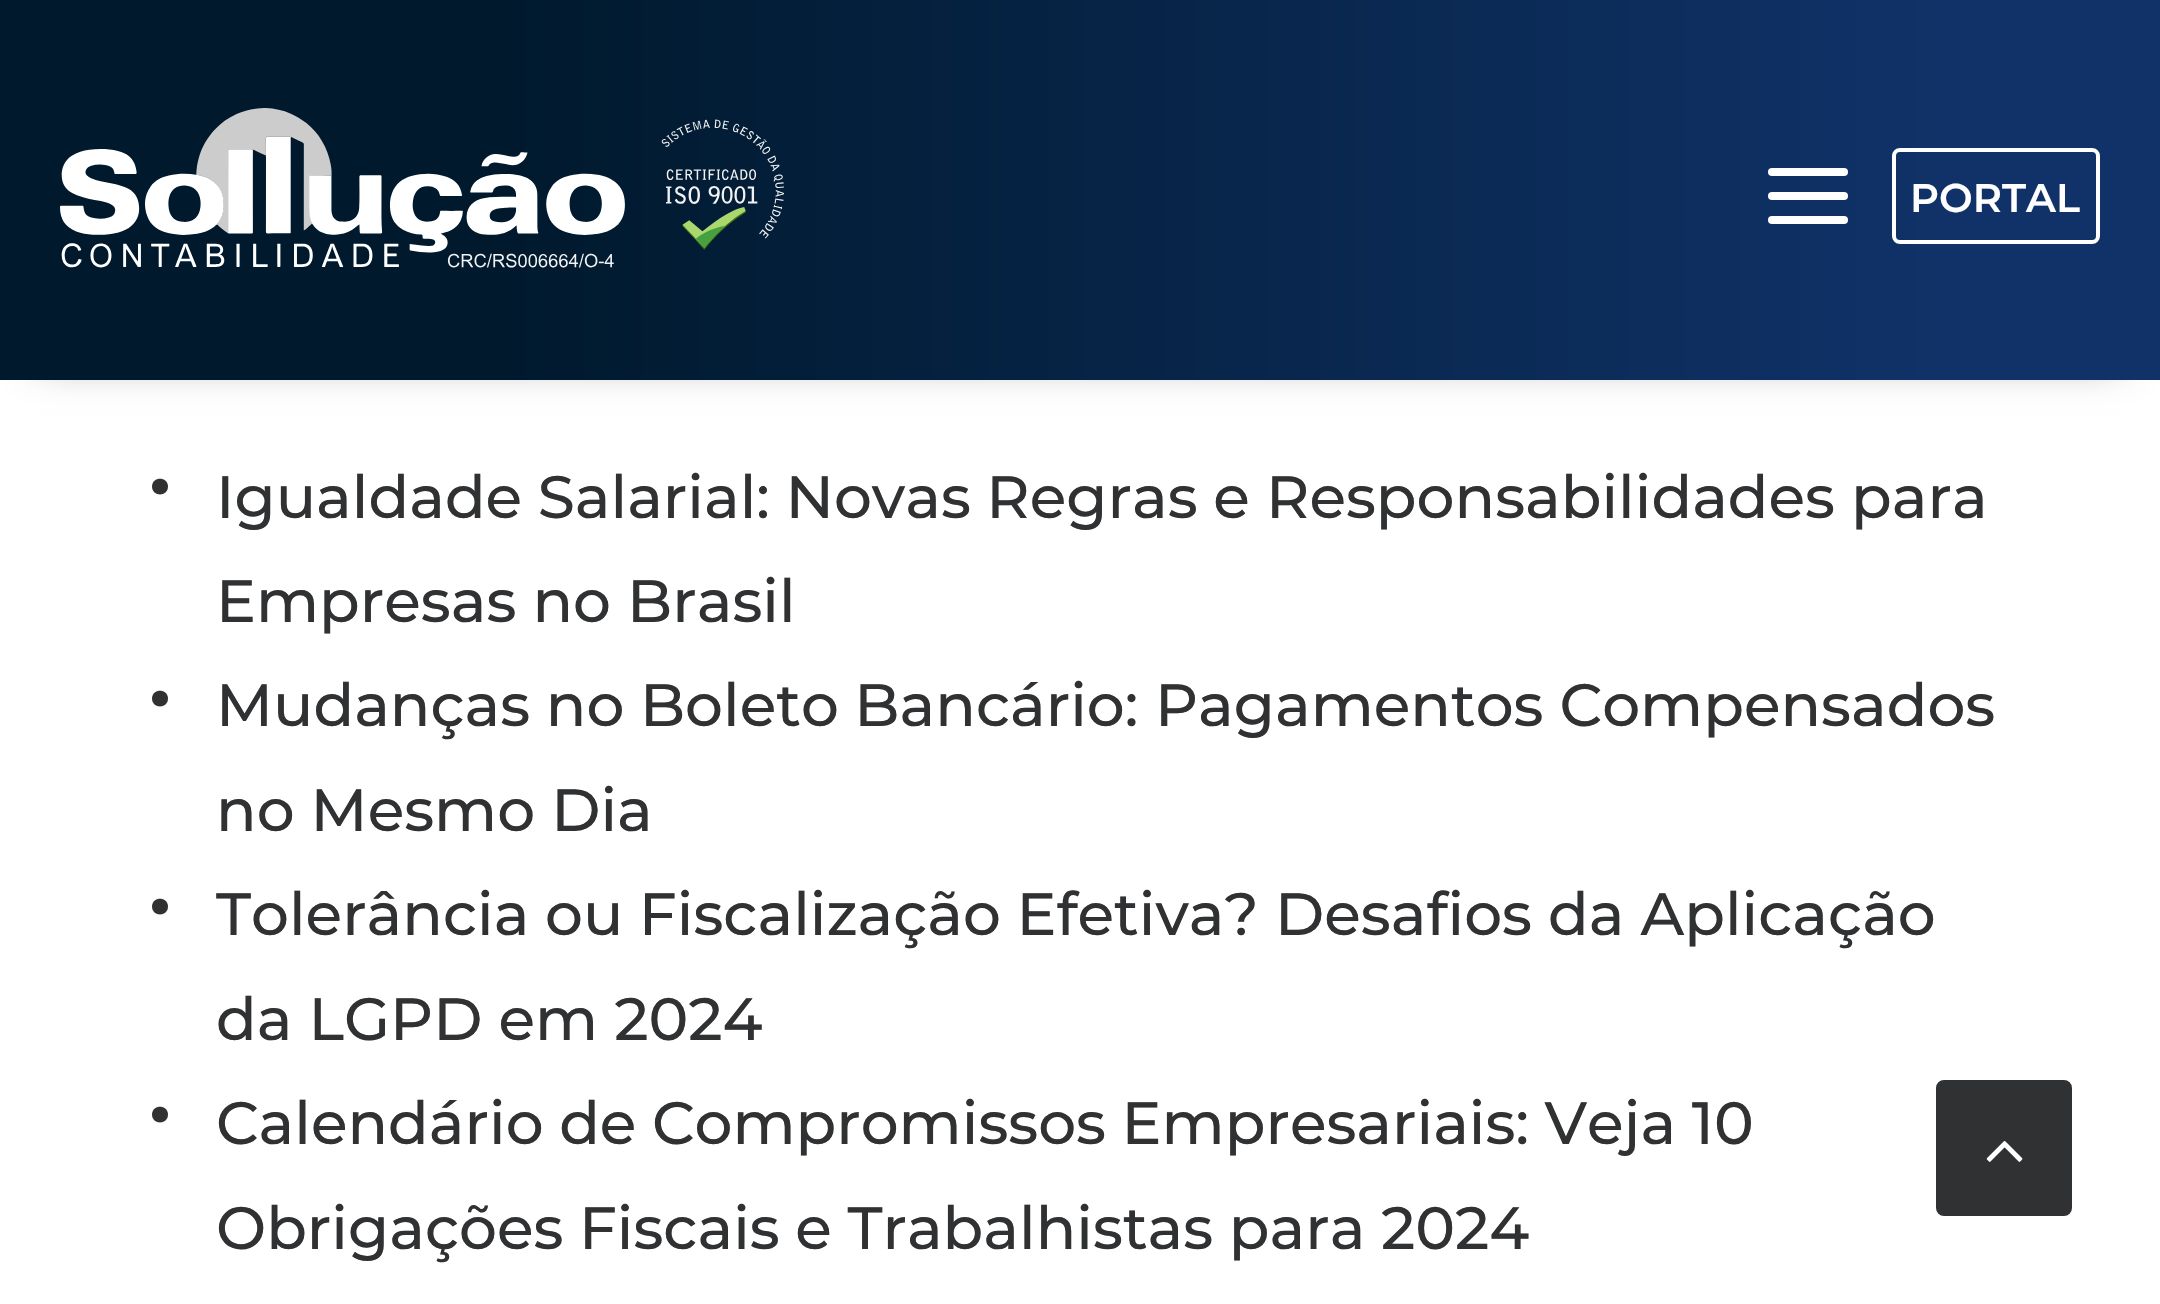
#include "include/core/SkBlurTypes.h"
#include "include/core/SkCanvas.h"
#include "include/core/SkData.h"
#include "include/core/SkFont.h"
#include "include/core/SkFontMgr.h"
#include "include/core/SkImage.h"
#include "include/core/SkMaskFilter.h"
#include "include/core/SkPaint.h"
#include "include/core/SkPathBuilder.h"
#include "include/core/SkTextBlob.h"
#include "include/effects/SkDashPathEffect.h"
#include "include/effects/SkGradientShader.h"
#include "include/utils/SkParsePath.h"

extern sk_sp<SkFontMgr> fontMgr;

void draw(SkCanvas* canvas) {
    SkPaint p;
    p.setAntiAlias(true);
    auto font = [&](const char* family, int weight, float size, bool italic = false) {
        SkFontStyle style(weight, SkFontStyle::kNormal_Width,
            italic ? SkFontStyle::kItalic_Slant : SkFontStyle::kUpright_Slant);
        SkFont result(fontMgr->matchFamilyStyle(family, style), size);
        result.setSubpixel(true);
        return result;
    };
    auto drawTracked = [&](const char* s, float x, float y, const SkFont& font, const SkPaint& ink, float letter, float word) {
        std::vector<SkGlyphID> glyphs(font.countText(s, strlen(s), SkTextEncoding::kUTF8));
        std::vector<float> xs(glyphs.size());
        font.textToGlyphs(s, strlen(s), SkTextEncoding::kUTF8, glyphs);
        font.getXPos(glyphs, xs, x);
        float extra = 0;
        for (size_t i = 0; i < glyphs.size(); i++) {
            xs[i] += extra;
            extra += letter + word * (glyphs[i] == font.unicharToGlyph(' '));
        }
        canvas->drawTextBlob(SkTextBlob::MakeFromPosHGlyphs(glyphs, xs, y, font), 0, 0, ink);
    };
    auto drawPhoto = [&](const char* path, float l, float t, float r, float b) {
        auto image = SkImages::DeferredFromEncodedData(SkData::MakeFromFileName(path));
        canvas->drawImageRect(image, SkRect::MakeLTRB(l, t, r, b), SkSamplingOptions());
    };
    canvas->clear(0xFFFFFFFF);
    p.setColor(0x99000000);
    p.setMaskFilter(SkMaskFilter::MakeBlur(kNormal_SkBlurStyle, 20));
    canvas->drawRect(SkRect::MakeLTRB(40, 56, 2120, 356), p);
    p.setMaskFilter(nullptr);
    {
        const SkColor colors[] = {0xFF00192D, 0xFF103268};
        const float stops[] = {0.23f, 0.9f};
        const SkPoint ends[] = {{0, 190}, {2160, 190}};
        p.setShader(SkGradientShader::MakeLinear(ends, colors, stops, 2, SkTileMode::kClamp));
        p.setAlpha(255);
    }
    canvas->drawRect(SkRect::MakeLTRB(0, 0, 2160, 380), p);
    drawPhoto("media/1.png", 60, 108, 784, 268);
    p.setShader(nullptr);
    p.setColor(0xFFFFFFFF);
    canvas->drawRoundRect(SkRect::MakeLTRB(1768, 192, 1848, 200), 4, 4, p);
    canvas->drawRoundRect(SkRect::MakeLTRB(1768, 168, 1848, 176), 4, 4, p);
    canvas->drawRoundRect(SkRect::MakeLTRB(1768, 216, 1848, 224), 4, 4, p);
    p.setStyle(SkPaint::kStroke_Style);
    p.setStrokeWidth(4);
    canvas->drawRoundRect(SkRect::MakeLTRB(1894, 150, 2098, 242), 6, 6, p);
    auto font1 = font("Montserrat", 600, 40);
    p.setStyle(SkPaint::kFill_Style);
    canvas->drawString("PORTAL", 1910, 212, font1, p);
    p.setColor(0xFF303133);
    canvas->drawPath(SkPathBuilder().moveTo(168, 486.5f).cubicTo(168, 476, 152, 476, 152, 486.5f).cubicTo(152, 497, 168, 497, 168, 486.5f).close().detach(), p);
    auto font2 = font("Montserrat", 500, 59.7f);
    drawTracked("Igualdade Salarial: Novas Regras e", 216, 518, font2, p, 0, -0.5f);
    canvas->drawString("Responsabilidades para", 1266, 518, font2, p);
    canvas->drawString("Empresas no Brasil", 216, 622, font2, p);
    canvas->drawPath(SkPathBuilder().moveTo(168, 698.5f).cubicTo(168, 688, 152, 688, 152, 698.5f).cubicTo(152, 709, 168, 709, 168, 698.5f).close().detach(), p);
    drawTracked("Mudanças no Boleto Bancário:", 216, 726, font2, p, 0, -0.5f);
    canvas->drawString("Pagamentos Compensados", 1155, 726, font2, p);
    canvas->drawString("no Mesmo Dia", 216, 831, font2, p);
    canvas->drawPath(SkPathBuilder().moveTo(168, 906.5f).cubicTo(168, 896, 152, 896, 152, 906.5f).cubicTo(152, 917, 168, 917, 168, 906.5f).close().detach(), p);
    drawTracked("Tolerância ou Fiscalização Efetiva?", 216, 935, font2, p, 0, -0.5f);
    canvas->drawString("Desafios da Aplicação", 1275, 935, font2, p);
    canvas->drawString("da LGPD em 2024", 216, 1040, font2, p);
    canvas->drawPath(SkPathBuilder().moveTo(168, 1114.5f).cubicTo(168, 1104, 152, 1104, 152, 1114.5f).cubicTo(152, 1125, 168, 1125, 168, 1114.5f).close().detach(), p);
    drawTracked("Calendário de Compromissos Empresariais: Veja 10", 216, 1144, font2, p, 0, -0.5f);
    drawTracked("Obrigações Fiscais e Trabalhistas para 2024", 216, 1249, font2, p, 0, -0.5f);
    canvas->drawRoundRect(SkRect::MakeLTRB(1938, 1082, 2070, 1214), 6, 6, p);
    p.setStyle(SkPaint::kStroke_Style);
    canvas->drawRoundRect(SkRect::MakeLTRB(1938, 1082, 2070, 1214), 6, 6, p);
    drawPhoto("media/2.png", 1986, 1141, 2023, 1162);
}
